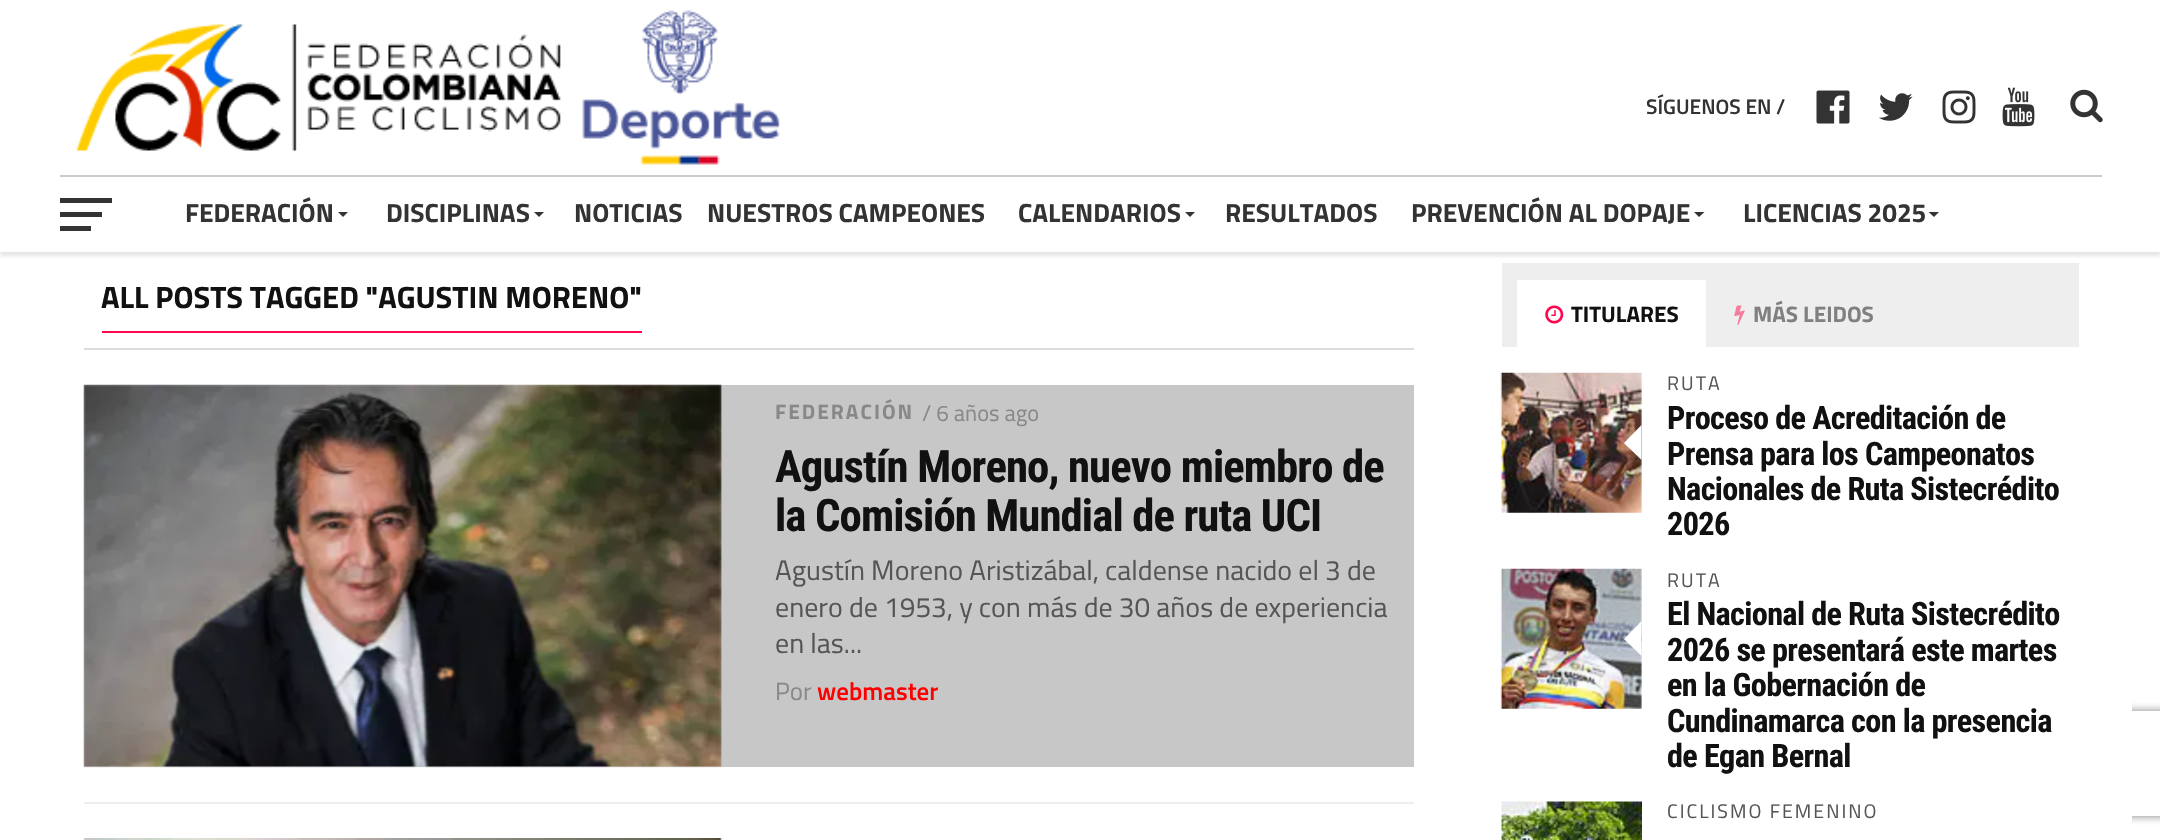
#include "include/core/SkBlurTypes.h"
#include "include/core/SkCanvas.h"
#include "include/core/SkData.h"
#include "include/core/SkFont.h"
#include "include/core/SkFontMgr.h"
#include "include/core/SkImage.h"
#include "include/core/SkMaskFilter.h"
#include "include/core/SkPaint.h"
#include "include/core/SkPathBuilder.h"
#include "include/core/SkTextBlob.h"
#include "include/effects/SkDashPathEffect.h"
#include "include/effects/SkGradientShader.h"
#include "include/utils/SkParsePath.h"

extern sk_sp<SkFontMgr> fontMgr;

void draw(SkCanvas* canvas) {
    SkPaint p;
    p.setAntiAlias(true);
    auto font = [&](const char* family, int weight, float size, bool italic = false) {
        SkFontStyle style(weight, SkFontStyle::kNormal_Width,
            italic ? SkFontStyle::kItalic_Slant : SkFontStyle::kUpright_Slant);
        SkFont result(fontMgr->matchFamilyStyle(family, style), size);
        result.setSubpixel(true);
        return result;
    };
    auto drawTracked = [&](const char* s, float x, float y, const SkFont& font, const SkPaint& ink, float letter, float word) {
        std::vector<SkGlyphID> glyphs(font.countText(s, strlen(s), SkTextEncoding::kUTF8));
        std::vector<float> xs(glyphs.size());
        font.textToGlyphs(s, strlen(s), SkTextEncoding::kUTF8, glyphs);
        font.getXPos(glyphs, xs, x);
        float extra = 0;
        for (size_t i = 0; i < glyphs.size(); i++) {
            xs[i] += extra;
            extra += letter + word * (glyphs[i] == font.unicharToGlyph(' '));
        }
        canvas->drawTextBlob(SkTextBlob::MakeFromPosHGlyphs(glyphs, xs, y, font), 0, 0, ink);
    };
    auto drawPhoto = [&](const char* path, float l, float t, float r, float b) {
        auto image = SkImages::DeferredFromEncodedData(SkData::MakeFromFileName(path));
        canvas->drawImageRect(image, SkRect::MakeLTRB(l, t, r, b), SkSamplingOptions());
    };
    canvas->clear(0xFFFFFFFF);
    canvas->save();
    canvas->clipRect(SkRect::MakeLTRB(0, 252, 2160, 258));
    p.setColor(0x1A000000);
    p.setMaskFilter(SkMaskFilter::MakeBlur(kNormal_SkBlurStyle, 2));
    canvas->drawRect(SkRect::MakeLTRB(0, 4, 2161, 256), p);
    p.setMaskFilter(nullptr);
    canvas->restore();
    p.setColor(0xFFCCCCCC);
    canvas->drawRect(SkRect::MakeLTRB(60, 175, 2102, 177), p);
    drawPhoto("media/1.png", 76, 10, 780, 165);
    auto font1 = font("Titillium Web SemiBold", 600, 21);
    p.setColor(0xFF333333);
    canvas->drawString("SÍGUENOS EN /", 1646, 114, font1, p);
    drawPhoto("media/2.png", 1816, 90, 1850, 124);
    drawPhoto("media/3.png", 1879, 93, 1913, 121);
    drawPhoto("media/4.png", 1942, 90, 1976, 124);
    drawPhoto("media/5.png", 2002, 87, 2035, 127);
    drawPhoto("media/6.png", 2070, 89, 2103, 123);
    {
        const struct { float l, t, r, b; SkColor color; } items[] = {
            {60, 198, 112, 203, 0xFF333333},
            {60, 212, 102, 217, 0xFF333333},
            {60, 226, 91, 231, 0xFF333333},
        };
        for (auto [l, t, r, b, color] : items) {
            p.setColor(color);
            canvas->drawRect(SkRect::MakeLTRB(l, t, r, b), p);
        }
    }
    auto font2 = font("Titillium Web", 700, 26.25f);
    canvas->drawString("FEDERACIÓN", 185, 222, font2, p);
    canvas->drawPath(SkPathBuilder().moveTo(338, 212).lineTo(348, 212).lineTo(343, 217).close().detach(), p);
    canvas->drawString("DISCIPLINAS", 386, 222, font2, p);
    canvas->drawPath(SkPathBuilder().moveTo(534, 212).lineTo(544, 212).lineTo(539, 217).close().detach(), p);
    {
        const struct { const char* s; float x, y; } items[] = {
            {"NOTICIAS", 574, 222},
            {"NUESTROS CAMPEONES", 707, 222},
            {"CALENDARIOS", 1018, 222},
        };
        for (auto [s, x, y] : items) {
            canvas->drawString(s, x, y, font2, p);
        }
    }
    canvas->drawPath(SkPathBuilder().moveTo(1185, 212).lineTo(1195, 212).lineTo(1190, 217).close().detach(), p);
    canvas->drawString("RESULTADOS", 1225, 222, font2, p);
    canvas->drawString("PREVENCIÓN AL DOPAJE", 1411, 222, font2, p);
    canvas->drawPath(SkPathBuilder().moveTo(1694, 212).lineTo(1704.5f, 212).lineTo(1699, 217).close().detach(), p);
    canvas->drawString("LICENCIAS 2025", 1743, 222, font2, p);
    canvas->drawPath(SkPathBuilder().moveTo(1928.5f, 212).lineTo(1939, 212).lineTo(1934, 217).close().detach(), p);
    canvas->save();
    canvas->clipPath(SkPathBuilder(SkPathFillType::kEvenOdd).moveTo(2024, 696).lineTo(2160, 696).lineTo(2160, 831).lineTo(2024, 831).close().moveTo(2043, 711).lineTo(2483, 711).cubicTo(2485, 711, 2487, 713, 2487, 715).lineTo(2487, 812).cubicTo(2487, 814, 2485, 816, 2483, 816).lineTo(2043, 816).cubicTo(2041, 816, 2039, 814, 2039, 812).lineTo(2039, 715).cubicTo(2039, 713, 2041, 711, 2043, 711).close().detach(), true);
    p.setColor(0xFF808080);
    p.setMaskFilter(SkMaskFilter::MakeBlur(kNormal_SkBlurStyle, 4.5f));
    canvas->drawRoundRect(SkRect::MakeLTRB(2039, 711, 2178, 816), 4, 4, p);
    p.setMaskFilter(nullptr);
    canvas->restore();
    {
        const struct { float l, t, r, b; SkColor color; } items[] = {
            {2030, 702, 2132, 825, 0xFFFFFFFF},
            {84, 348, 1414, 350, 0xFFDDDDDD},
            {102, 331, 642, 333, 0xFFFE074E},
        };
        for (auto [l, t, r, b, color] : items) {
            p.setColor(color);
            canvas->drawRect(SkRect::MakeLTRB(l, t, r, b), p);
        }
    }
    auto font3 = font("Titillium Web", 700, 30.75f);
    p.setColor(0xFF111111);
    canvas->drawString("ALL POSTS TAGGED \"AGUSTIN MORENO\"", 101, 308, font3, p);
    p.setColor(0xFFC7C7C7);
    canvas->drawRect(SkRect::MakeLTRB(84, 385, 1414, 767), p);
    drawPhoto("media/7.png", 83, 384, 722, 768);
    auto font4 = font("Titillium Web", 700, 21);
    p.setColor(0xFF888888);
    drawTracked("FEDERACIÓN", 775, 419, font4, p, 2, 0);
    auto font5 = font("Titillium Web", 400, 22.5f);
    canvas->drawString("/ 6 años ago", 922, 421, font5, p);
    auto font6 = font("Roboto Condensed", 700, 44.75f);
    p.setColor(0xFF111111);
    drawTracked("Agustín Moreno, nuevo miembro de", 775, 482, font6, p, -0.9f, 0);
    drawTracked("la Comisión Mundial de ruta UCI", 775, 531, font6, p, -0.9f, 0);
    auto font7 = font("Titillium Web", 400, 28);
    p.setColor(0xFF555555);
    {
        const struct { const char* s; float x, y; } items[] = {
            {"Agustín Moreno Aristizábal, caldense nacido el 3 de", 775, 580},
            {"enero de 1953, y con más de 30 años de experiencia", 775, 617},
            {"en las...", 775, 653},
        };
        for (auto [s, x, y] : items) {
            canvas->drawString(s, x, y, font7, p);
        }
    }
    auto font8 = font("Titillium Web", 400, 25);
    p.setColor(0xFF888888);
    canvas->drawString("Por", 775, 700, font8, p);
    auto font9 = font("Titillium Web SemiBold", 600, 25);
    p.setColor(0xFFFF0000);
    canvas->drawString("webmaster", 817, 700, font9, p);
    p.setColor(0xFFEEEEEE);
    canvas->drawRect(SkRect::MakeLTRB(84, 802, 1414, 804), p);
    drawPhoto("media/8.png", 83, 838, 723, 840);
    canvas->drawRect(SkRect::MakeLTRB(1502, 263, 2079, 347), p);
    p.setColor(0xFFFFFFFF);
    canvas->drawRect(SkRect::MakeLTRB(1517, 280, 1706, 347), p);
    drawPhoto("media/9.png", 1545, 305, 1564, 324);
    auto font10 = font("Titillium Web", 700, 22.5f);
    p.setColor(0xFF111111);
    canvas->drawString("TITULARES", 1571, 322, font10, p);
    drawPhoto("media/10.png", 1734, 305, 1745, 325);
    p.setColor(0xFF808080);
    canvas->drawString("MÁS LEIDOS", 1753, 322, font10, p);
    drawPhoto("media/11.png", 1500, 372, 1642, 513);
    p.setColor(0xFFFFFFFF);
    canvas->drawPath(SkPathBuilder().moveTo(1641.5f, 425).lineTo(1641.5f, 460).lineTo(1624, 443).close().detach(), p);
    auto font11 = font("Titillium Web", 400, 19.6f);
    p.setColor(0xFF555555);
    drawTracked("RUTA", 1667, 390, font11, p, 2, 0);
    auto font12 = font("Roboto Condensed", 700, 32.25f);
    p.setColor(0xFF111111);
    {
        const struct { const char* s; float x, y; } items[] = {
            {"Proceso de Acreditación de", 1667, 429},
            {"Prensa para los Campeonatos", 1667, 465},
            {"Nacionales de Ruta Sistecrédito", 1667, 500},
            {"2026", 1667, 535},
        };
        for (auto [s, x, y] : items) {
            drawTracked(s, x, y, font12, p, -0.65f, 0);
        }
    }
    drawPhoto("media/12.png", 1500, 568, 1642, 709);
    p.setColor(0xFFFFFFFF);
    canvas->drawPath(SkPathBuilder().moveTo(1641.5f, 621).lineTo(1641.5f, 656).lineTo(1624, 639).close().detach(), p);
    p.setColor(0xFF555555);
    drawTracked("RUTA", 1667, 587, font11, p, 2, 0);
    p.setColor(0xFF111111);
    {
        const struct { const char* s; float x, y; } items[] = {
            {"El Nacional de Ruta Sistecrédito", 1667, 625},
            {"2026 se presentará este martes", 1667, 661},
            {"en la Gobernación de", 1667, 696},
            {"Cundinamarca con la presencia", 1667, 732},
            {"de Egan Bernal", 1667, 767},
        };
        for (auto [s, x, y] : items) {
            drawTracked(s, x, y, font12, p, -0.65f, 0);
        }
    }
    drawPhoto("media/13.png", 1501, 801, 1642, 840);
    p.setColor(0xFF555555);
    drawTracked("CICLISMO FEMENINO", 1667, 818, font11, p, 2, 0);
}
